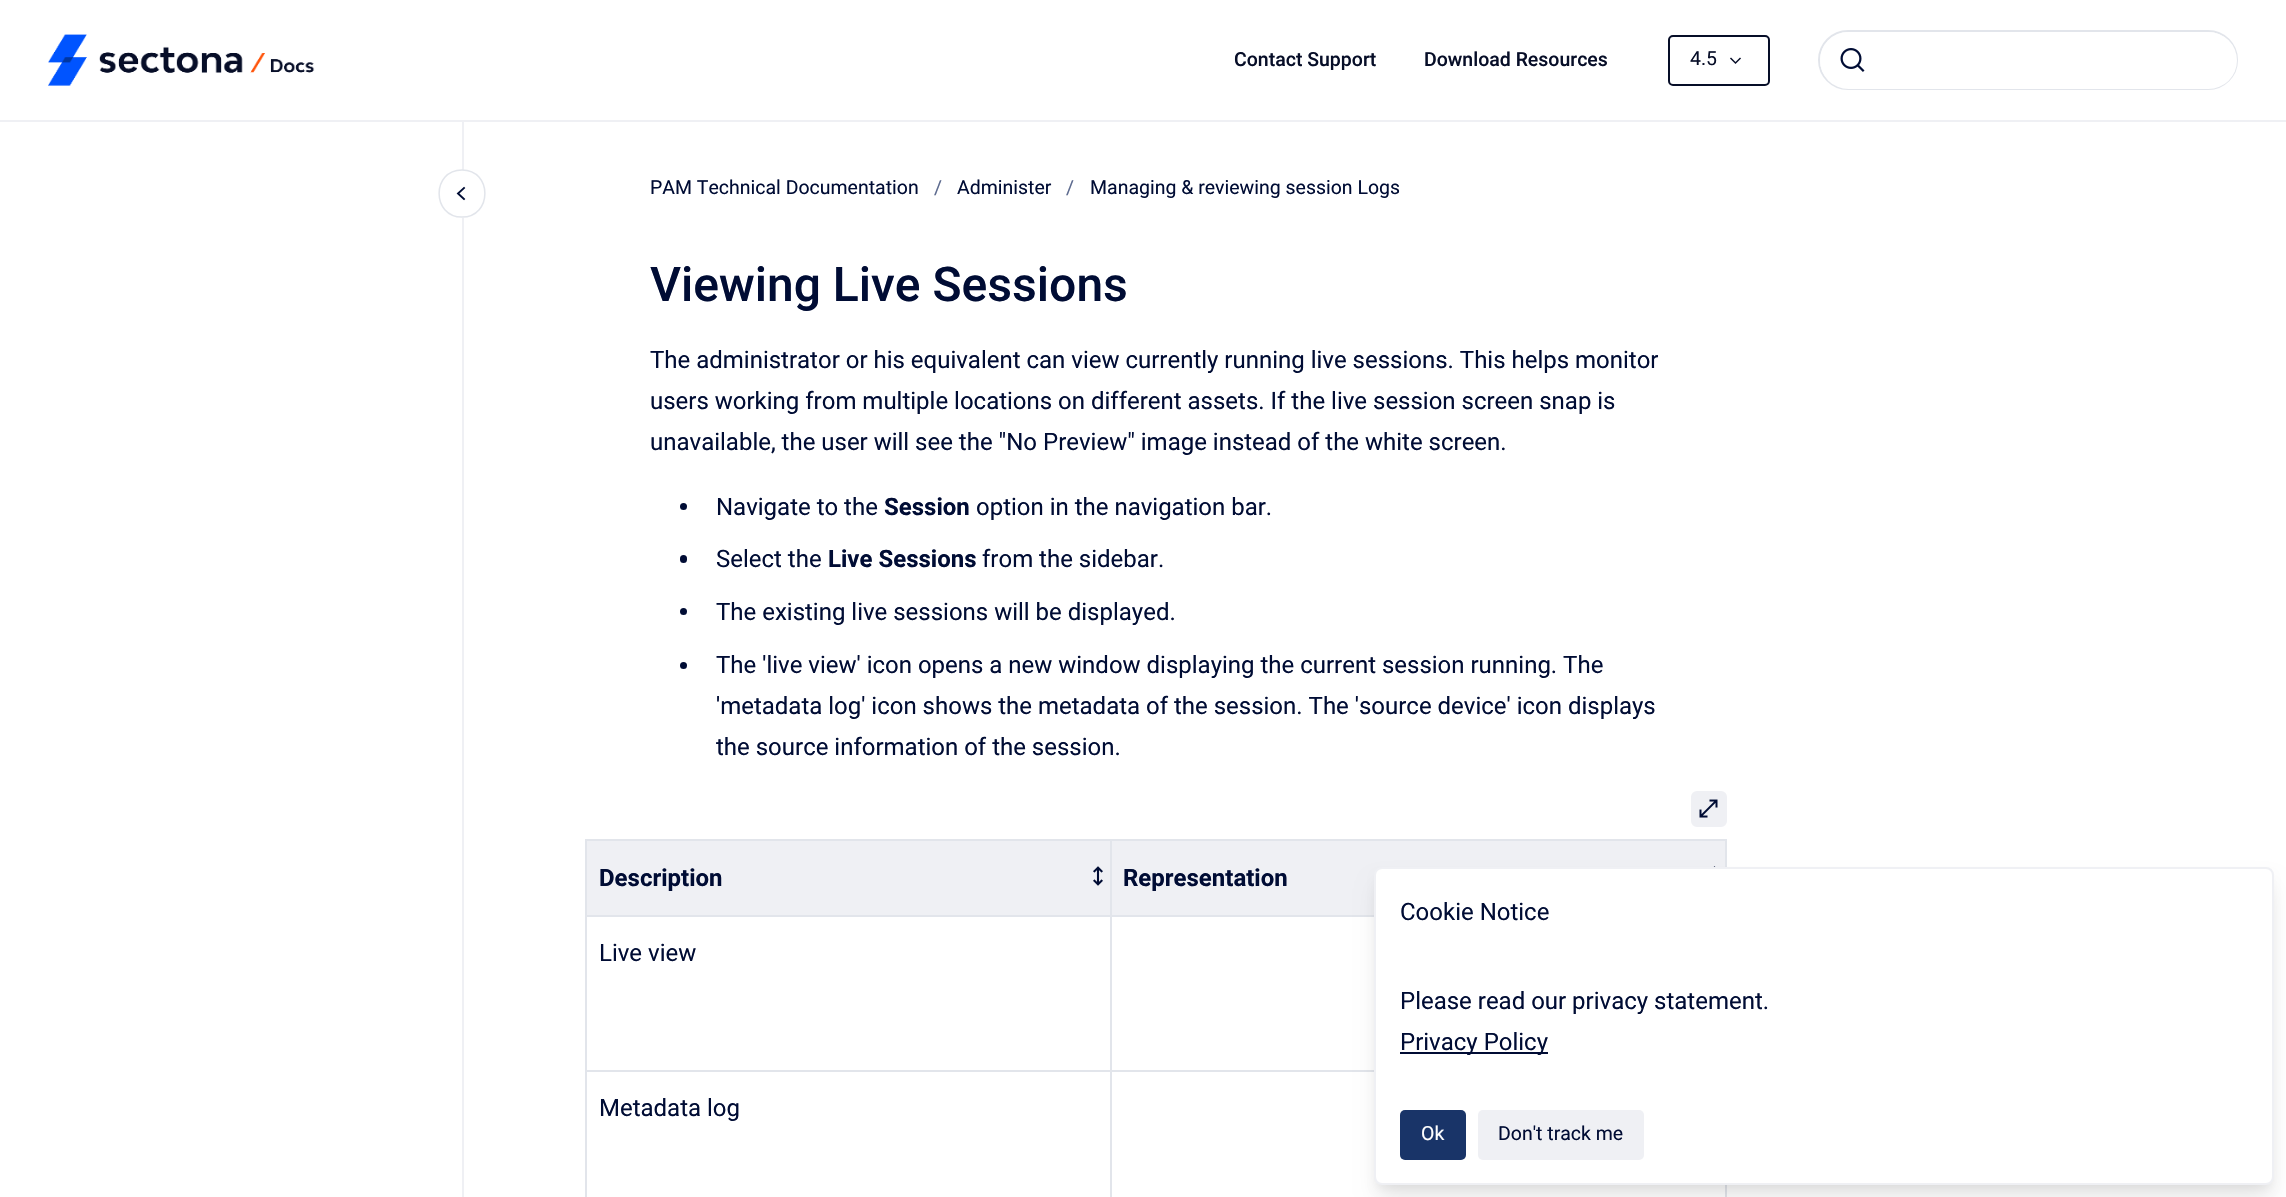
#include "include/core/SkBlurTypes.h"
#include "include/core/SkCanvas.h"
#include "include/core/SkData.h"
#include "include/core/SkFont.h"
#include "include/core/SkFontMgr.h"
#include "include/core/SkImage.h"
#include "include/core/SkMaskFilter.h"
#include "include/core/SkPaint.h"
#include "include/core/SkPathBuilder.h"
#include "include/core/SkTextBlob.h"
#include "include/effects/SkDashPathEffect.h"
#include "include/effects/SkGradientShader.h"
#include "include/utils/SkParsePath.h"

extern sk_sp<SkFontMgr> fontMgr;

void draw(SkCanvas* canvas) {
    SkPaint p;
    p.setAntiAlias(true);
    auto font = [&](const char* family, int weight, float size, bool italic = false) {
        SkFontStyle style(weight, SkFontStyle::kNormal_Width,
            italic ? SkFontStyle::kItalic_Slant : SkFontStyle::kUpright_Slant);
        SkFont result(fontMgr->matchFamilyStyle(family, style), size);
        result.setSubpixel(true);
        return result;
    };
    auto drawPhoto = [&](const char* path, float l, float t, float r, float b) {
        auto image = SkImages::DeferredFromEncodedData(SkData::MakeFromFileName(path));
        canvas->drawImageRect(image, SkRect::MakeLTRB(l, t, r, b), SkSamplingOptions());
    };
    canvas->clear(0xFFFFFFFF);
    p.setColor(0xFFEFF0F4);
    canvas->drawRect(SkRect::MakeLTRB(0, 120, 2286, 122), p);
    drawPhoto("media/1.png", 48, 34, 315, 86);
    auto font1 = font("Roboto", 500, 19.5f);
    p.setColor(0xFF070E28);
    canvas->drawString("Contact Support", 1234, 66, font1, p);
    canvas->drawString("Download Resources", 1424, 66, font1, p);
    p.setStyle(SkPaint::kStroke_Style);
    p.setStrokeWidth(2);
    canvas->drawRoundRect(SkRect::MakeLTRB(1669, 36, 1769, 85), 4, 4, p);
    auto font2 = font("Roboto", 400, 19.5f);
    p.setStyle(SkPaint::kFill_Style);
    canvas->drawString("4.5", 1690, 65, font2, p);
    p.setStyle(SkPaint::kStroke_Style);
    p.setStrokeWidth(1.5f);
    p.setStrokeCap(SkPaint::kSquare_Cap);
    canvas->drawPath(SkPathBuilder().moveTo(1740, 58.5f).lineTo(1735.5f, 63).lineTo(1731, 58.5f).detach(), p);
    p.setStrokeWidth(2);
    p.setStrokeCap(SkPaint::kButt_Cap);
    p.setColor(0xFFE2E5EB);
    canvas->drawRoundRect(SkRect::MakeLTRB(1819, 31, 2237, 89), 29, 29, p);
    p.setStyle(SkPaint::kFill_Style);
    p.setColor(0xFFFFFFFF);
    canvas->drawRoundRect(SkRect::MakeLTRB(1820, 32, 2237, 89), 28.5f, 28.5f, p);
    drawPhoto("media/2.png", 1840, 48, 1865, 72);
    p.setColor(0xFFEFF0F4);
    canvas->drawRect(SkRect::MakeLTRB(462, 122, 464, 1197), p);
    p.setColor(0xFFFFFFFF);
    canvas->drawPath(SkPathBuilder().moveTo(462, 218).cubicTo(430, 218, 430, 170, 462, 170).cubicTo(494, 170, 494, 218, 462, 218).close().detach(), p);
    p.setStyle(SkPaint::kStroke_Style);
    p.setStrokeWidth(1.5f);
    p.setColor(0xFFE2E5EB);
    canvas->drawPath(SkPathBuilder().moveTo(462, 217).cubicTo(431.5f, 217, 431.5f, 170, 462, 170).cubicTo(492.5f, 170, 492.5f, 217, 462, 217).close().detach(), p);
    p.setStrokeWidth(1.9f);
    p.setStrokeCap(SkPaint::kSquare_Cap);
    p.setColor(0xFF000C34);
    canvas->drawPath(SkPathBuilder().moveTo(464, 199).lineTo(458, 193.5f).lineTo(464, 188).detach(), p);
    p.setStyle(SkPaint::kFill_Style);
    canvas->drawString("PAM Technical Documentation", 650, 194, font2, p);
    p.setColor(0xFF5D6B8F);
    canvas->drawString("/", 934, 194, font2, p);
    p.setColor(0xFF000C34);
    canvas->drawString("Administer", 957, 194, font2, p);
    p.setColor(0xFF5D6B8F);
    canvas->drawString("/", 1066, 194, font2, p);
    p.setColor(0xFF000C34);
    canvas->drawString("Managing & reviewing session Logs", 1090, 194, font2, p);
    auto font3 = font("Roboto", 500, 48);
    canvas->drawString("Viewing Live Sessions", 650, 301, font3, p);
    auto font4 = font("Roboto", 400, 24);
    {
        const struct { const char* s; float x, y; } items[] = {
            {"The administrator or his equivalent can view currently running live sessions. This helps monitor", 650, 368},
            {"users working from multiple locations on different assets. If the live session screen snap is", 650, 409},
            {"unavailable, the user will see the \"No Preview\" image instead of the white screen.", 650, 450},
        };
        for (auto [s, x, y] : items) {
            canvas->drawString(s, x, y, font4, p);
        }
    }
    canvas->drawCircle(683.5f, 506.5f, 3.5f, p);
    canvas->drawString("Navigate to the", 716, 515, font4, p);
    auto font5 = font("Roboto", 700, 24);
    canvas->drawString("Session", 884, 515, font5, p);
    canvas->drawString("option in the navigation bar.", 976, 515, font4, p);
    canvas->drawRoundRect(SkRect::MakeLTRB(680, 555, 687, 563), 3.5f, 3.5f, p);
    canvas->drawString("Select the", 716, 567, font4, p);
    canvas->drawString("Live Sessions", 828, 567, font5, p);
    canvas->drawString("from the sidebar.", 982, 567, font4, p);
    canvas->drawCircle(683.5f, 611.5f, 3.5f, p);
    canvas->drawString("The existing live sessions will be displayed.", 716, 620, font4, p);
    canvas->drawCircle(683.5f, 665.5f, 3.5f, p);
    {
        const struct { const char* s; float x, y; } items[] = {
            {"The 'live view' icon opens a new window displaying the current session running. The", 716, 673},
            {"'metadata log' icon shows the metadata of the session. The 'source device' icon displays", 716, 714},
            {"the source information of the session.", 716, 755},
        };
        for (auto [s, x, y] : items) {
            canvas->drawString(s, x, y, font4, p);
        }
    }
    p.setColor(0xFFEFF0F4);
    canvas->drawRoundRect(SkRect::MakeLTRB(1692, 792, 1726, 826), 5, 5, p);
    p.setStyle(SkPaint::kStroke_Style);
    p.setStrokeWidth(2);
    p.setStrokeCap(SkPaint::kButt_Cap);
    canvas->drawRoundRect(SkRect::MakeLTRB(1692, 792, 1726, 826), 5, 5, p);
    drawPhoto("media/3.png", 1699, 799, 1718, 818);
    p.setStyle(SkPaint::kFill_Style);
    {
        const struct { float l, t, r, b; SkColor color; } items[] = {
            {585, 839, 1727, 841, 0xFFE2E5EB},
            {1725, 839, 1727, 1197, 0xFFE2E5EB},
            {585, 839, 587, 1197, 0xFFE2E5EB},
            {587, 841, 1110, 915, 0xFFEFF0F4},
        };
        for (auto [l, t, r, b, color] : items) {
            p.setColor(color);
            canvas->drawRect(SkRect::MakeLTRB(l, t, r, b), p);
        }
    }
    drawPhoto("media/4.png", 1093, 866, 1103, 886);
    p.setColor(0xFF000C34);
    canvas->drawString("Description", 599, 886, font5, p);
    p.setColor(0xFFEFF0F4);
    canvas->drawRect(SkRect::MakeLTRB(1112, 841, 1725, 915), p);
    drawPhoto("media/5.png", 1713, 866, 1716, 867);
    {
        const struct { float l, t, r, b; SkColor color; } items[] = {
            {1110, 915, 1374, 917, 0xFFE2E5EB},
            {1110, 1070, 1374, 1072, 0xFFE2E5EB},
            {1110, 1070, 1112, 1197, 0xFFE2E5EB},
            {585, 1070, 1112, 1072, 0xFFE2E5EB},
            {1110, 915, 1112, 1071, 0xFFE2E5EB},
            {585, 915, 1112, 917, 0xFFE2E5EB},
            {1110, 839, 1112, 917, 0xFFE2E5EB},
        };
        for (auto [l, t, r, b, color] : items) {
            p.setColor(color);
            canvas->drawRect(SkRect::MakeLTRB(l, t, r, b), p);
        }
    }
    p.setColor(0xFF000C34);
    canvas->drawString("Representation", 1123, 886, font5, p);
    canvas->drawString("Live view", 599, 961, font4, p);
    canvas->drawString("Metadata log", 599, 1116, font4, p);
    p.setColor(0x0D000000);
    p.setMaskFilter(SkMaskFilter::MakeBlur(kNormal_SkBlurStyle, 4.5f));
    canvas->drawRoundRect(SkRect::MakeLTRB(1377, 876, 2271, 1188), 5, 5, p);
    p.setMaskFilter(nullptr);
    p.setColor(0x1A000000);
    p.setMaskFilter(SkMaskFilter::MakeBlur(kNormal_SkBlurStyle, 11));
    canvas->drawRoundRect(SkRect::MakeLTRB(1379, 887, 2270, 1196), 3, 3, p);
    p.setMaskFilter(nullptr);
    p.setColor(0xFFFFFFFF);
    canvas->drawRoundRect(SkRect::MakeLTRB(1375, 868, 2273, 1184), 7, 7, p);
    p.setStyle(SkPaint::kStroke_Style);
    p.setColor(0xFFEFF0F4);
    canvas->drawRoundRect(SkRect::MakeLTRB(1375, 868, 2273, 1184), 7, 7, p);
    p.setStyle(SkPaint::kFill_Style);
    p.setColor(0xFF000C34);
    canvas->drawString("Cookie Notice", 1400, 920, font4, p);
    canvas->drawString("Please read our privacy statement.", 1400, 1009, font4, p);
    canvas->drawRect(SkRect::MakeLTRB(1400, 1052, 1548, 1054), p);
    canvas->drawString("Privacy Policy", 1400, 1050, font4, p);
    p.setColor(0xFF193468);
    canvas->drawRoundRect(SkRect::MakeLTRB(1400, 1110, 1466, 1160), 5, 5, p);
    p.setColor(0xFFFFFFFF);
    canvas->drawString("Ok", 1421, 1140, font2, p);
    p.setColor(0xFFEFF0F4);
    canvas->drawRoundRect(SkRect::MakeLTRB(1478, 1110, 1644, 1160), 5, 5, p);
    p.setColor(0xFF000C34);
    canvas->drawString("Don't track me", 1498, 1140, font2, p);
}
